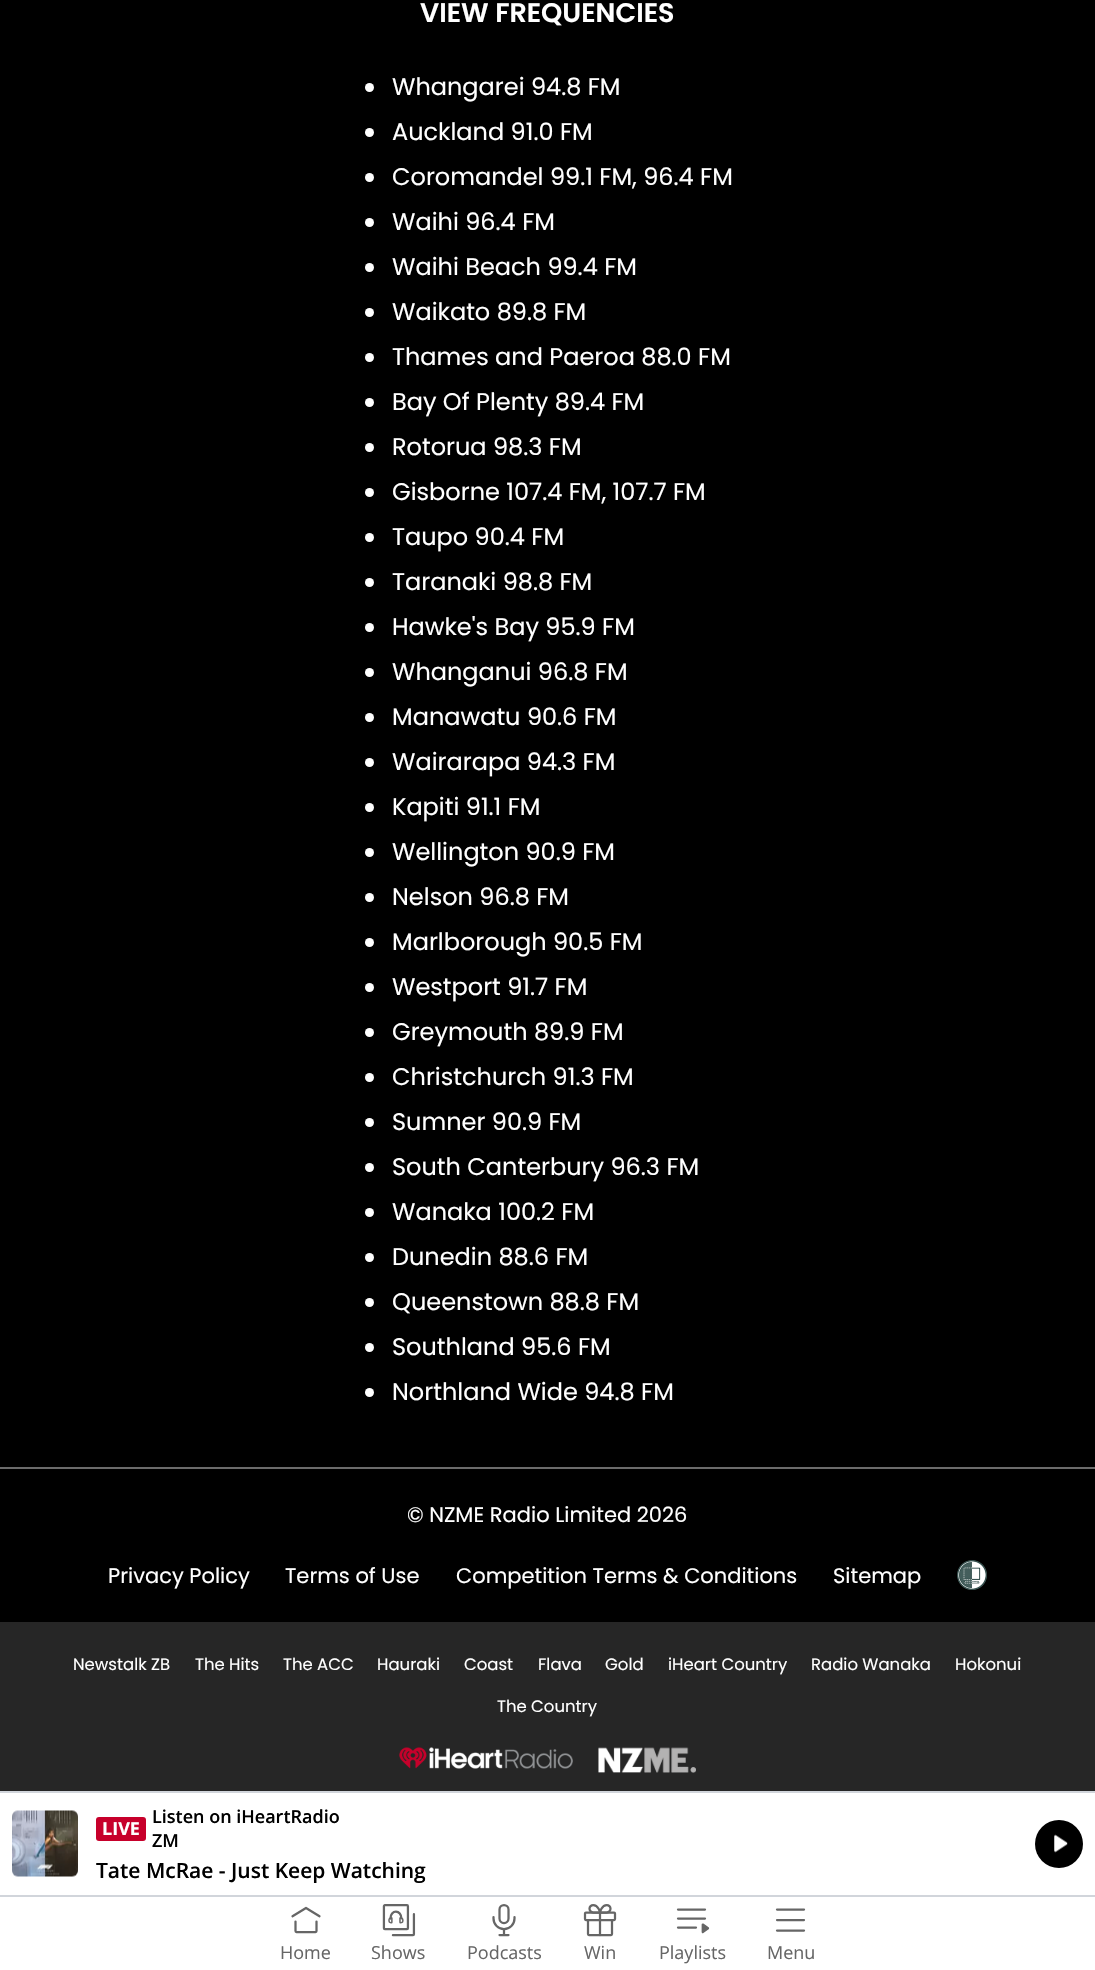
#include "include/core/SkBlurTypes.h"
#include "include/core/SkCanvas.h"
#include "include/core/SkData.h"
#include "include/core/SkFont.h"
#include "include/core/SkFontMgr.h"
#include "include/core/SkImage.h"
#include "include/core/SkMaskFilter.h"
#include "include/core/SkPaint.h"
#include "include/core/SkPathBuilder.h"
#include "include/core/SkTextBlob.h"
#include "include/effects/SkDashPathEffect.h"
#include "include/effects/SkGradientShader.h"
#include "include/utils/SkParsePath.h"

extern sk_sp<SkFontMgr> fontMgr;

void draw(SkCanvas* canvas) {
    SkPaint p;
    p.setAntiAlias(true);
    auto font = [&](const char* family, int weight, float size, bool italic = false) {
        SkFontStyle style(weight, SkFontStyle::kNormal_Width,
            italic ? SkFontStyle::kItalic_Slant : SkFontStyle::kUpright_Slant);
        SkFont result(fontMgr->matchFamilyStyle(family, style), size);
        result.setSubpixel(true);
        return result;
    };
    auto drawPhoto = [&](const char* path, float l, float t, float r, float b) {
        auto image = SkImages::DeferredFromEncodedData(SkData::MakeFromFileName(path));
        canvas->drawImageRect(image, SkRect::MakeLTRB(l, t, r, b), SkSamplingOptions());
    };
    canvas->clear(0xFF000000);
    auto font1 = font("Poppins", 600, 27);
    p.setColor(0xFFFFFFFF);
    canvas->drawString("VIEW FREQUENCIES", 420, 22, font1, p);
    canvas->drawCircle(369.5f, 87.5f, 4.5f, p);
    auto font2 = font("Poppins", 400, 24);
    canvas->drawString("Whangarei 94.8 FM", 392, 95, font2, p);
    canvas->drawCircle(369.5f, 132.5f, 4.5f, p);
    canvas->drawString("Auckland 91.0 FM", 392, 140, font2, p);
    canvas->drawCircle(369.5f, 177.5f, 4.5f, p);
    canvas->drawString("Coromandel 99.1 FM, 96.4 FM", 392, 185, font2, p);
    canvas->drawCircle(369.5f, 222.5f, 4.5f, p);
    canvas->drawString("Waihi 96.4 FM", 392, 230, font2, p);
    canvas->drawCircle(369.5f, 267.5f, 4.5f, p);
    canvas->drawString("Waihi Beach 99.4 FM", 392, 275, font2, p);
    canvas->drawCircle(369.5f, 312.5f, 4.5f, p);
    canvas->drawString("Waikato 89.8 FM", 392, 320, font2, p);
    canvas->drawCircle(369.5f, 357.5f, 4.5f, p);
    canvas->drawString("Thames and Paeroa 88.0 FM", 392, 365, font2, p);
    canvas->drawCircle(369.5f, 402.5f, 4.5f, p);
    canvas->drawString("Bay Of Plenty 89.4 FM", 392, 410, font2, p);
    canvas->drawCircle(369.5f, 447.5f, 4.5f, p);
    canvas->drawString("Rotorua 98.3 FM", 392, 455, font2, p);
    canvas->drawCircle(369.5f, 492.5f, 4.5f, p);
    canvas->drawString("Gisborne 107.4 FM, 107.7 FM", 392, 500, font2, p);
    canvas->drawCircle(369.5f, 537.5f, 4.5f, p);
    canvas->drawString("Taupo 90.4 FM", 392, 545, font2, p);
    canvas->drawCircle(369.5f, 582.5f, 4.5f, p);
    canvas->drawString("Taranaki 98.8 FM", 392, 590, font2, p);
    canvas->drawCircle(369.5f, 627.5f, 4.5f, p);
    canvas->drawString("Hawke's Bay 95.9 FM", 392, 635, font2, p);
    canvas->drawCircle(369.5f, 672.5f, 4.5f, p);
    canvas->drawString("Whanganui 96.8 FM", 392, 680, font2, p);
    canvas->drawCircle(369.5f, 717.5f, 4.5f, p);
    canvas->drawString("Manawatu 90.6 FM", 392, 725, font2, p);
    canvas->drawCircle(369.5f, 762.5f, 4.5f, p);
    canvas->drawString("Wairarapa 94.3 FM", 392, 770, font2, p);
    canvas->drawCircle(369.5f, 807.5f, 4.5f, p);
    canvas->drawString("Kapiti 91.1 FM", 392, 815, font2, p);
    canvas->drawCircle(369.5f, 852.5f, 4.5f, p);
    canvas->drawString("Wellington 90.9 FM", 392, 860, font2, p);
    canvas->drawCircle(369.5f, 897.5f, 4.5f, p);
    canvas->drawString("Nelson 96.8 FM", 392, 905, font2, p);
    canvas->drawCircle(369.5f, 942.5f, 4.5f, p);
    canvas->drawString("Marlborough 90.5 FM", 392, 950, font2, p);
    canvas->drawCircle(369.5f, 987.5f, 4.5f, p);
    canvas->drawString("Westport 91.7 FM", 392, 995, font2, p);
    canvas->drawCircle(369.5f, 1032.5f, 4.5f, p);
    canvas->drawString("Greymouth 89.9 FM", 392, 1040, font2, p);
    canvas->drawCircle(369.5f, 1077.5f, 4.5f, p);
    canvas->drawString("Christchurch 91.3 FM", 392, 1085, font2, p);
    canvas->drawCircle(369.5f, 1122.5f, 4.5f, p);
    canvas->drawString("Sumner 90.9 FM", 392, 1130, font2, p);
    canvas->drawCircle(369.5f, 1167.5f, 4.5f, p);
    canvas->drawString("South Canterbury 96.3 FM", 392, 1175, font2, p);
    canvas->drawCircle(369.5f, 1212.5f, 4.5f, p);
    canvas->drawString("Wanaka 100.2 FM", 392, 1220, font2, p);
    canvas->drawCircle(369.5f, 1257.5f, 4.5f, p);
    canvas->drawString("Dunedin 88.6 FM", 392, 1265, font2, p);
    canvas->drawCircle(369.5f, 1302.5f, 4.5f, p);
    canvas->drawString("Queenstown 88.8 FM", 392, 1310, font2, p);
    canvas->drawCircle(369.5f, 1347.5f, 4.5f, p);
    canvas->drawString("Southland 95.6 FM", 392, 1355, font2, p);
    canvas->drawCircle(369.5f, 1392.5f, 4.5f, p);
    canvas->drawString("Northland Wide 94.8 FM", 392, 1400, font2, p);
    p.setColor(0xFF6B6B6B);
    canvas->drawRect(SkRect::MakeLTRB(0, 1467, 1095, 1469), p);
    auto font3 = font("Poppins", 400, 21);
    p.setColor(0xFFFFFFFF);
    {
        const struct { const char* s; float x, y; } items[] = {
            {"© NZME Radio Limited 2026", 407, 1522},
            {"Privacy Policy", 108, 1583},
            {"Terms of Use", 285, 1583},
            {"Competition Terms & Conditions", 456, 1583},
            {"Sitemap", 833, 1583},
        };
        for (auto [s, x, y] : items) {
            canvas->drawString(s, x, y, font3, p);
        }
    }
    drawPhoto("media/1.png", 957, 1560, 987, 1590);
    p.setColor(0xFF262626);
    canvas->drawRect(SkRect::MakeLTRB(0, 1622, 1095, 1791), p);
    auto font4 = font("Poppins", 400, 16.5f);
    p.setColor(0xFFFFFFFF);
    {
        const struct { const char* s; float x, y; } items[] = {
            {"Newstalk ZB", 73, 1670},
            {"The Hits", 195, 1670},
            {"The ACC", 283, 1670},
            {"Hauraki", 377, 1670},
            {"Coast", 464, 1670},
            {"Flava", 538, 1670},
            {"Gold", 605, 1670},
            {"iHeart Country", 668, 1670},
            {"Radio Wanaka", 811, 1670},
            {"Hokonui", 955, 1670},
            {"The Country", 497, 1712},
        };
        for (auto [s, x, y] : items) {
            canvas->drawString(s, x, y, font4, p);
        }
    }
    drawPhoto("media/2.png", 399, 1747, 573, 1769);
    drawPhoto("media/3.png", 598, 1747, 696, 1773);
    canvas->drawRect(SkRect::MakeLTRB(0, 1793, 1095, 1970), p);
    p.setColor(0xFFD1D5DB);
    canvas->drawRect(SkRect::MakeLTRB(0, 1791, 1095, 1793), p);
    drawPhoto("media/4.png", 12, 1810, 78, 1877);
    p.setColor(0xFFC7002B);
    canvas->drawRoundRect(SkRect::MakeLTRB(96, 1817, 146, 1841), 3, 3, p);
    auto font5 = font("Open Sans", 700, 18);
    p.setColor(0xFFFFFFFF);
    canvas->drawString("LIVE", 102, 1835, font5, p);
    auto font6 = font("Open Sans", 600, 18);
    p.setColor(0xFF000000);
    canvas->drawString("Listen on iHeartRadio", 152, 1823, font6, p);
    canvas->drawString("ZM", 152, 1847, font6, p);
    auto font7 = font("Open Sans", 600, 21);
    canvas->drawString("Tate McRae - Just Keep Watching", 96, 1878, font7, p);
    canvas->drawCircle(1059, 1844, 24, p);
    drawPhoto("media/5.png", 1054, 1834, 1068, 1853);
    p.setColor(0xFFD1D5DB);
    canvas->drawRect(SkRect::MakeLTRB(0, 1895, 1095, 1897), p);
    drawPhoto("media/6.png", 291, 1906, 321, 1934);
    auto font8 = font("Open Sans", 400, 18);
    p.setColor(0xFF666666);
    canvas->drawString("Home", 280, 1959, font8, p);
    drawPhoto("media/7.png", 382, 1904, 416, 1937);
    canvas->drawString("Shows", 371, 1959, font8, p);
    drawPhoto("media/8.png", 492, 1904, 516, 1937);
    canvas->drawString("Podcasts", 467, 1959, font8, p);
    drawPhoto("media/9.png", 583, 1904, 617, 1937);
    canvas->drawString("Win", 584, 1959, font8, p);
    drawPhoto("media/10.png", 676, 1908, 710, 1934);
    canvas->drawString("Playlists", 659, 1959, font8, p);
    drawPhoto("media/11.png", 775, 1908, 806, 1932);
    canvas->drawString("Menu", 767, 1959, font8, p);
}
